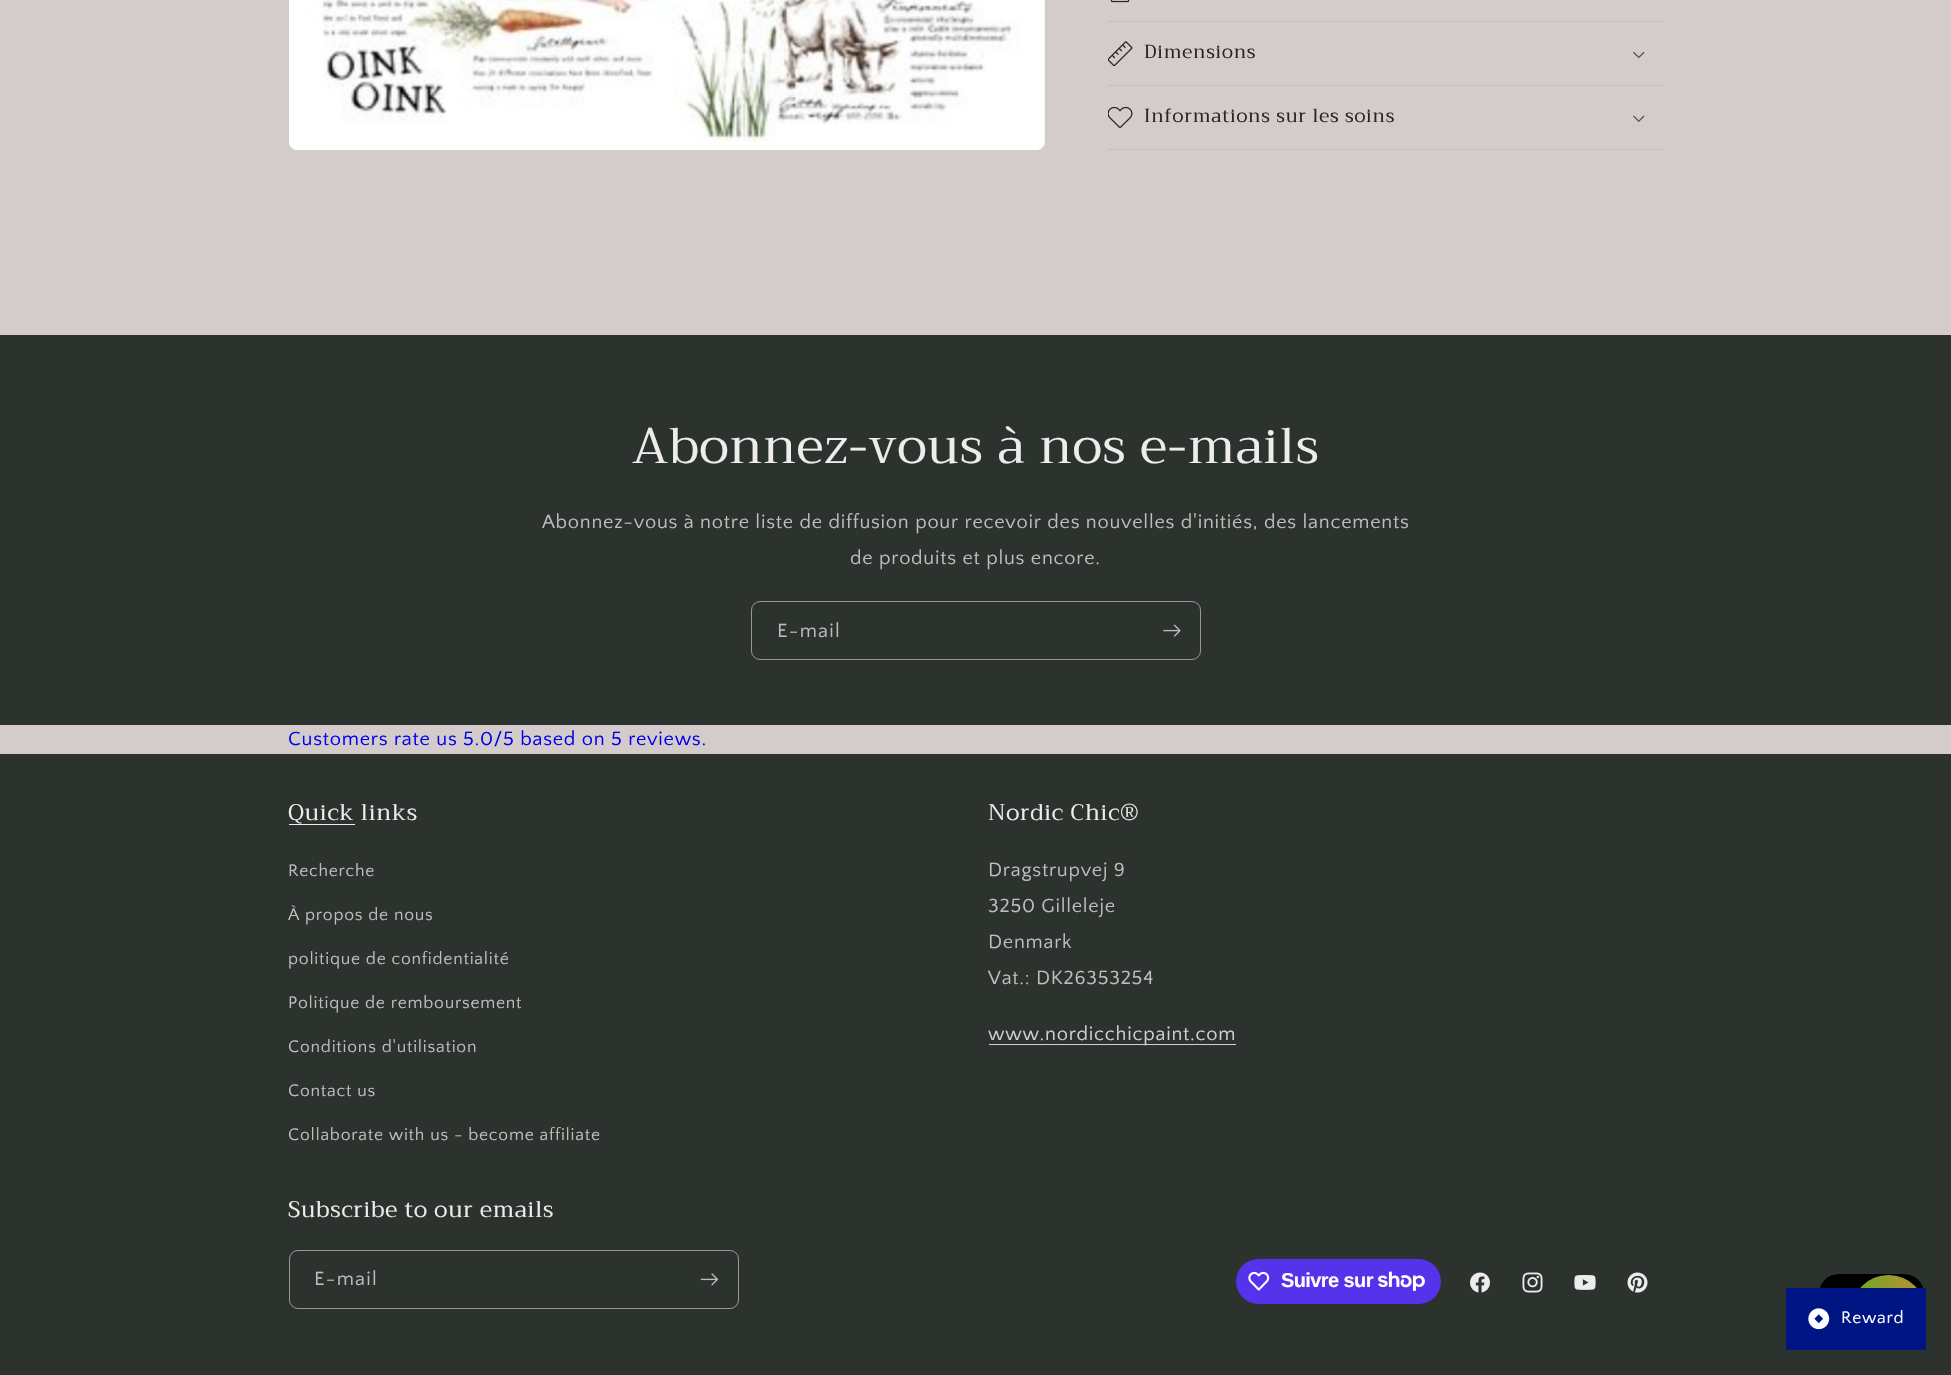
#include "include/core/SkBlurTypes.h"
#include "include/core/SkCanvas.h"
#include "include/core/SkData.h"
#include "include/core/SkFont.h"
#include "include/core/SkFontMgr.h"
#include "include/core/SkImage.h"
#include "include/core/SkMaskFilter.h"
#include "include/core/SkPaint.h"
#include "include/core/SkPathBuilder.h"
#include "include/core/SkTextBlob.h"
#include "include/effects/SkDashPathEffect.h"
#include "include/effects/SkGradientShader.h"
#include "include/utils/SkParsePath.h"

extern sk_sp<SkFontMgr> fontMgr;

void draw(SkCanvas* canvas) {
    SkPaint p;
    p.setAntiAlias(true);
    auto font = [&](const char* family, int weight, float size, bool italic = false) {
        SkFontStyle style(weight, SkFontStyle::kNormal_Width,
            italic ? SkFontStyle::kItalic_Slant : SkFontStyle::kUpright_Slant);
        SkFont result(fontMgr->matchFamilyStyle(family, style), size);
        result.setSubpixel(true);
        return result;
    };
    auto drawTracked = [&](const char* s, float x, float y, const SkFont& font, const SkPaint& ink, float letter, float word) {
        std::vector<SkGlyphID> glyphs(font.countText(s, strlen(s), SkTextEncoding::kUTF8));
        std::vector<float> xs(glyphs.size());
        font.textToGlyphs(s, strlen(s), SkTextEncoding::kUTF8, glyphs);
        font.getXPos(glyphs, xs, x);
        float extra = 0;
        for (size_t i = 0; i < glyphs.size(); i++) {
            xs[i] += extra;
            extra += letter + word * (glyphs[i] == font.unicharToGlyph(' '));
        }
        canvas->drawTextBlob(SkTextBlob::MakeFromPosHGlyphs(glyphs, xs, y, font), 0, 0, ink);
    };
    auto drawPhoto = [&](const char* path, float l, float t, float r, float b) {
        auto image = SkImages::DeferredFromEncodedData(SkData::MakeFromFileName(path));
        canvas->drawImageRect(image, SkRect::MakeLTRB(l, t, r, b), SkSamplingOptions());
    };
    canvas->clear(0xFFD4CBCB);
    drawPhoto("media/1.png", 289, 0, 1045, 150);
    p.setColor(0xFFC6BEBE);
    canvas->drawRect(SkRect::MakeLTRB(1108, 21, 1664, 22), p);
    drawPhoto("media/2.png", 1110, 0, 1130, 3);
    canvas->drawRect(SkRect::MakeLTRB(1108, 85, 1664, 86), p);
    drawPhoto("media/3.png", 1108, 41, 1133, 66);
    auto font1 = font("Trirong", 400, 18.75f);
    p.setColor(0xFF252525);
    drawTracked("Dimensions", 1144, 58, font1, p, 0.75f, 0);
    drawPhoto("media/4.png", 1633, 51, 1645, 59);
    p.setColor(0xFFC6BEBE);
    canvas->drawRect(SkRect::MakeLTRB(1108, 149, 1664, 150), p);
    drawPhoto("media/5.png", 1108, 106, 1133, 129);
    p.setColor(0xFF252525);
    drawTracked("Informations sur les soins", 1144, 122, font1, p, 0.75f, 0);
    drawPhoto("media/6.png", 1633, 115, 1645, 122);
    p.setColor(0xFF2C332F);
    canvas->drawRect(SkRect::MakeLTRB(0, 335, 1951, 725), p);
    auto font2 = font("Trirong", 400, 50);
    p.setColor(0xFFEFECEC);
    drawTracked("Abonnez-vous à nos e-mails", 632, 463, font2, p, 0.75f, 0);
    auto font3 = font("Quattrocento Sans", 400, 20);
    p.setColor(0xFFBEBEBD);
    drawTracked("Abonnez-vous à notre liste de diffusion pour recevoir des nouvelles d'initiés, des lancements", 542, 528, font3, p, 0.75f, 0);
    drawTracked("de produits et plus encore.", 850, 564, font3, p, 0.75f, 0);
    p.setStyle(SkPaint::kStroke_Style);
    p.setStrokeWidth(1);
    p.setColor(0xFF979997);
    canvas->drawRoundRect(SkRect::MakeLTRB(751.5f, 601.5f, 1200.5f, 659.5f), 8.5f, 8.5f, p);
    p.setStyle(SkPaint::kFill_Style);
    p.setColor(0xFFBEBEBD);
    drawTracked("E-mail", 777, 637, font3, p, 1.25f, 0);
    drawPhoto("media/7.png", 1163, 624, 1181, 637);
    p.setColor(0xFF0000EE);
    drawTracked("Customers rate us 5.0/5 based on 5 reviews.", 288, 745, font3, p, 0.75f, 0);
    p.setColor(0xFF2C332F);
    canvas->drawRect(SkRect::MakeLTRB(0, 754, 1951, 1375), p);
    auto font4 = font("Trirong", 400, 22.5f);
    p.setColor(0xFFEFECEC);
    drawTracked("Quick links", 288, 820, font4, p, 0.75f, 0);
    canvas->drawRect(SkRect::MakeLTRB(289, 824, 355, 825), p);
    auto font5 = font("Quattrocento Sans", 400, 17.5f);
    p.setColor(0xFFBEBEBD);
    {
        const struct { const char* s; float x, y; } items[] = {
            {"Recherche", 288, 876},
            {"À propos de nous", 288, 920},
            {"politique de confidentialité", 288, 964},
            {"Politique de remboursement", 288, 1008},
            {"Conditions d'utilisation", 288, 1052},
            {"Contact us", 288, 1096},
            {"Collaborate with us - become affiliate", 288, 1140},
        };
        for (auto [s, x, y] : items) {
            drawTracked(s, x, y, font5, p, 0.75f, 0);
        }
    }
    p.setColor(0xFFEFECEC);
    drawTracked("Nordic Chic®", 988, 820, font4, p, 0.75f, 0);
    p.setColor(0xFFBEBEBD);
    {
        const struct { const char* s; float x, y; } items[] = {
            {"Dragstrupvej 9", 988, 876},
            {"3250 Gilleleje", 988, 912},
            {"Denmark", 988, 948},
            {"Vat.: DK26353254", 988, 984},
        };
        for (auto [s, x, y] : items) {
            drawTracked(s, x, y, font3, p, 0.75f, 0);
        }
    }
    p.setColor(0xFFD2D0D0);
    canvas->drawRect(SkRect::MakeLTRB(989, 1044, 1236, 1045), p);
    drawTracked("www.nordicchicpaint.com", 988, 1040, font3, p, 0.75f, 0);
    p.setColor(0xFFEFECEC);
    drawTracked("Subscribe to our emails", 288, 1217, font4, p, 0.75f, 0);
    p.setStyle(SkPaint::kStroke_Style);
    p.setColor(0xFF979997);
    canvas->drawRoundRect(SkRect::MakeLTRB(289.5f, 1250.5f, 738.5f, 1308.5f), 8.5f, 8.5f, p);
    p.setStyle(SkPaint::kFill_Style);
    p.setColor(0xFFBEBEBD);
    drawTracked("E-mail", 314, 1285, font3, p, 1.25f, 0);
    drawPhoto("media/8.png", 700, 1273, 718, 1286);
    p.setColor(0xFF5433EB);
    canvas->drawRoundRect(SkRect::MakeLTRB(1236, 1259, 1441, 1304), 22.5f, 22.5f, p);
    drawPhoto("media/9.png", 1248, 1271, 1270, 1291);
    auto font6 = font("Liberation Sans", 700, 20);
    p.setColor(0xFFFFFFFF);
    drawTracked("Suivre sur", 1281, 1287, font6, p, -0.6f, 0);
    drawPhoto("media/10.png", 1378, 1271, 1425, 1291);
    drawPhoto("media/11.png", 1470, 1272, 1490, 1293);
    drawPhoto("media/12.png", 1522, 1272, 1543, 1293);
    drawPhoto("media/13.png", 1574, 1275, 1596, 1290);
    drawPhoto("media/14.png", 1627, 1272, 1648, 1293);
    p.setColor(0xFF000000);
    canvas->drawRoundRect(SkRect::MakeLTRB(1819, 1274, 1924, 1349), 20, 20, p);
    {
        const SkColor colors[] = {0xFF6EA527, 0xFFBC9134};
        const float stops[] = {0, 1};
        const SkPoint ends[] = {{1851, 1313}, {1926, 1313}};
        p.setShader(SkGradientShader::MakeLinear(ends, colors, stops, 2, SkTileMode::kClamp));
        p.setAlpha(255);
    }
    canvas->drawCircle(1888.5f, 1312.5f, 37.5f, p);
    p.setShader(nullptr);
    p.setColor(0xFF001584);
    canvas->drawRect(SkRect::MakeLTRB(1786, 1288, 1926, 1350), p);
    drawPhoto("media/15.png", 1808, 1308, 1830, 1330);
    p.setColor(0xFFFFFFFF);
    drawTracked("Reward", 1841, 1323, font5, p, 0.75f, 0);
}
